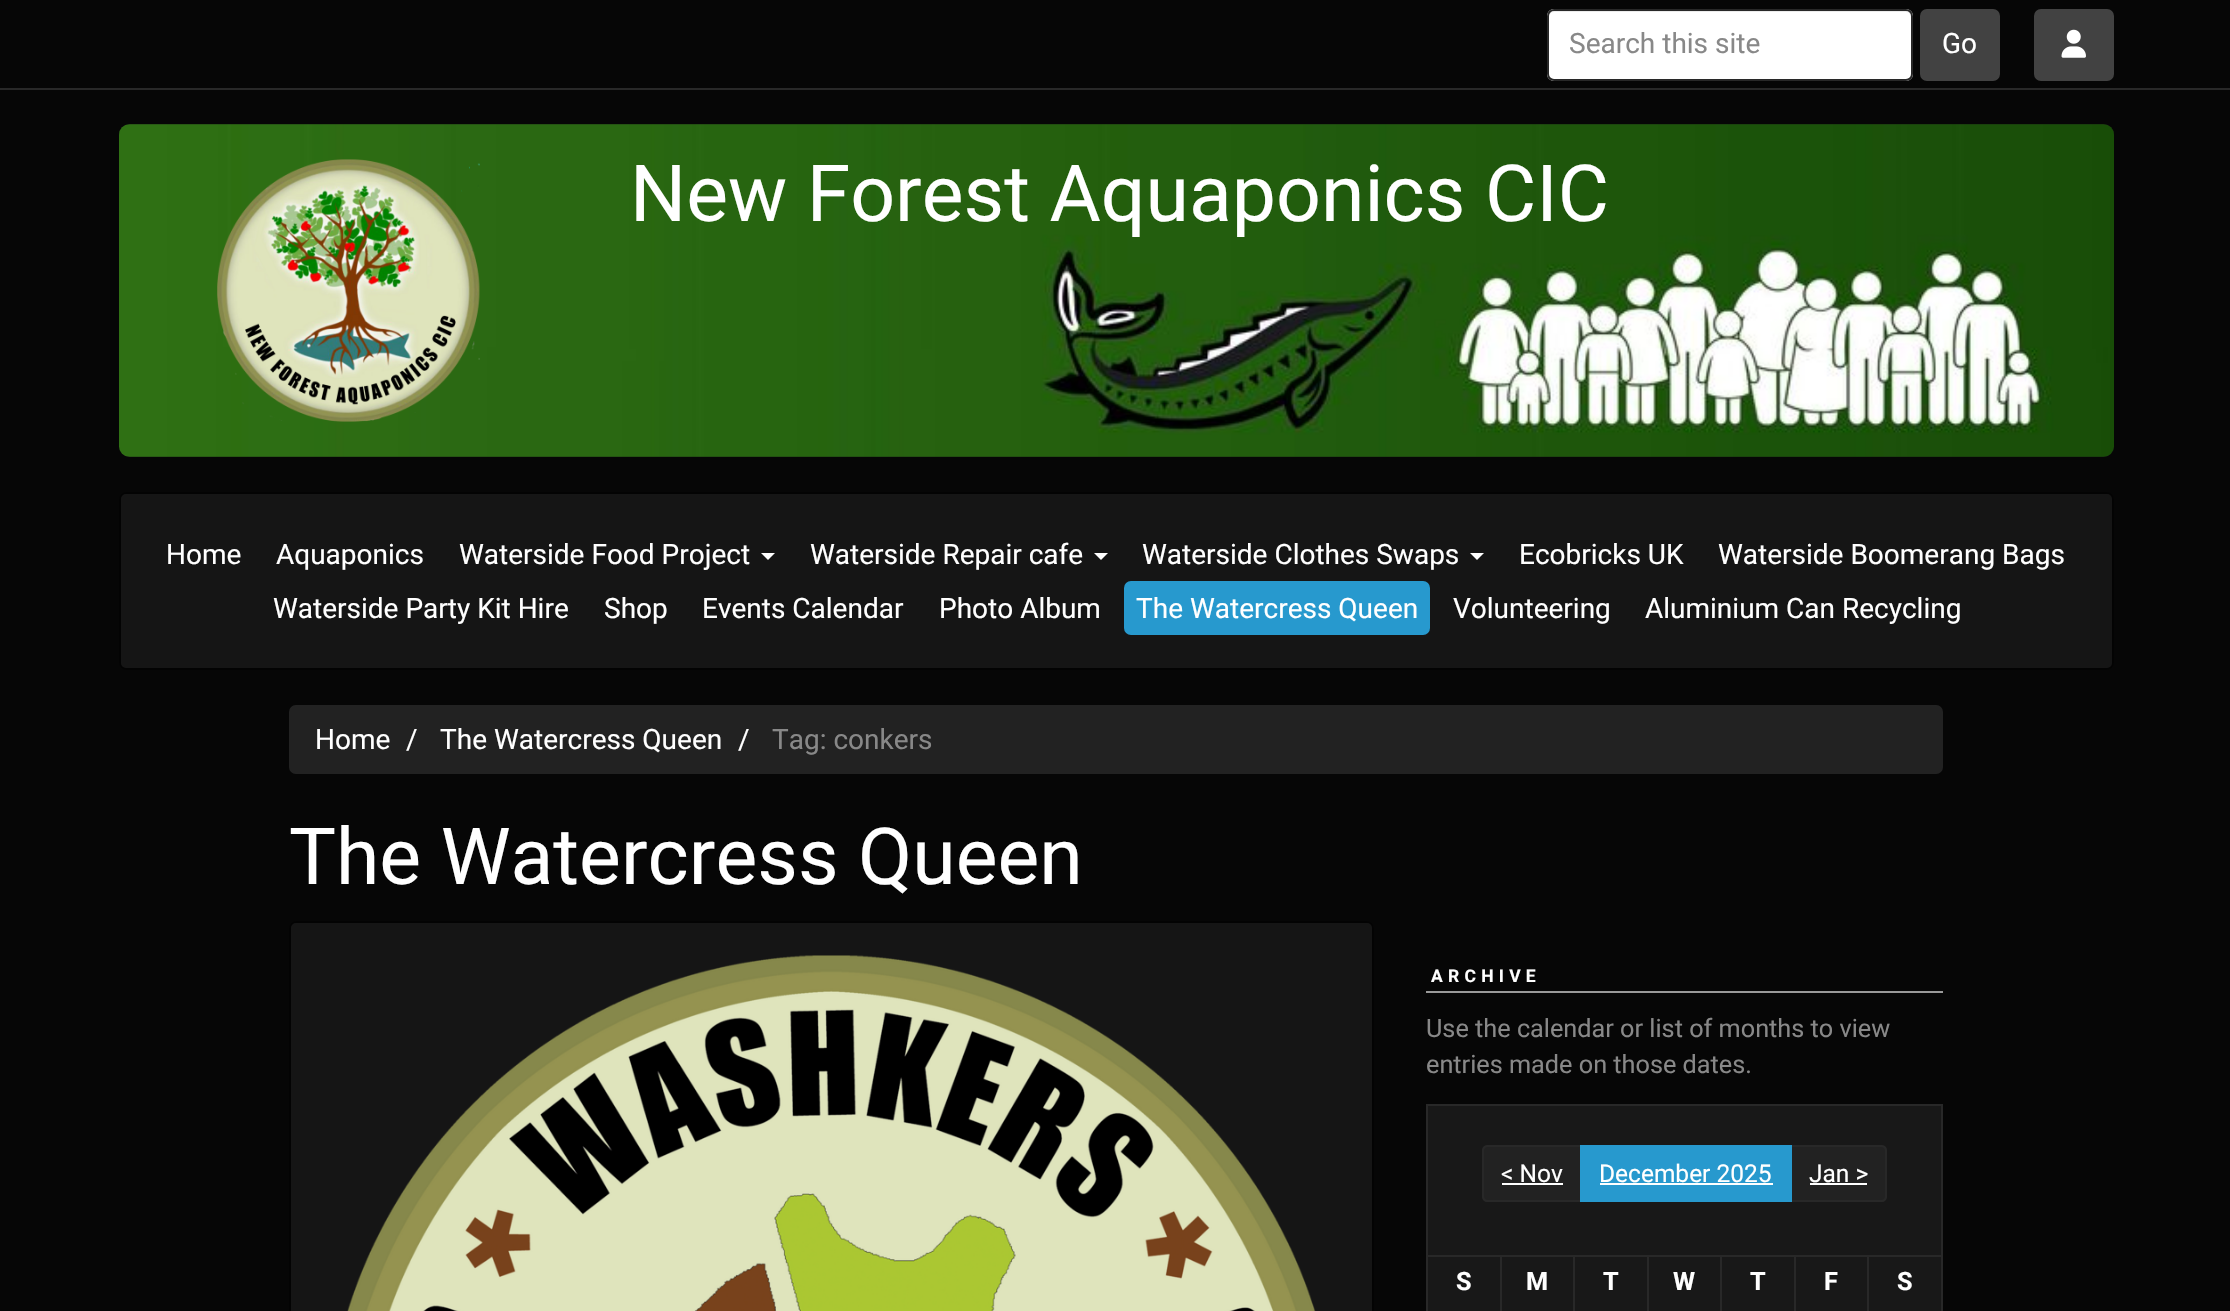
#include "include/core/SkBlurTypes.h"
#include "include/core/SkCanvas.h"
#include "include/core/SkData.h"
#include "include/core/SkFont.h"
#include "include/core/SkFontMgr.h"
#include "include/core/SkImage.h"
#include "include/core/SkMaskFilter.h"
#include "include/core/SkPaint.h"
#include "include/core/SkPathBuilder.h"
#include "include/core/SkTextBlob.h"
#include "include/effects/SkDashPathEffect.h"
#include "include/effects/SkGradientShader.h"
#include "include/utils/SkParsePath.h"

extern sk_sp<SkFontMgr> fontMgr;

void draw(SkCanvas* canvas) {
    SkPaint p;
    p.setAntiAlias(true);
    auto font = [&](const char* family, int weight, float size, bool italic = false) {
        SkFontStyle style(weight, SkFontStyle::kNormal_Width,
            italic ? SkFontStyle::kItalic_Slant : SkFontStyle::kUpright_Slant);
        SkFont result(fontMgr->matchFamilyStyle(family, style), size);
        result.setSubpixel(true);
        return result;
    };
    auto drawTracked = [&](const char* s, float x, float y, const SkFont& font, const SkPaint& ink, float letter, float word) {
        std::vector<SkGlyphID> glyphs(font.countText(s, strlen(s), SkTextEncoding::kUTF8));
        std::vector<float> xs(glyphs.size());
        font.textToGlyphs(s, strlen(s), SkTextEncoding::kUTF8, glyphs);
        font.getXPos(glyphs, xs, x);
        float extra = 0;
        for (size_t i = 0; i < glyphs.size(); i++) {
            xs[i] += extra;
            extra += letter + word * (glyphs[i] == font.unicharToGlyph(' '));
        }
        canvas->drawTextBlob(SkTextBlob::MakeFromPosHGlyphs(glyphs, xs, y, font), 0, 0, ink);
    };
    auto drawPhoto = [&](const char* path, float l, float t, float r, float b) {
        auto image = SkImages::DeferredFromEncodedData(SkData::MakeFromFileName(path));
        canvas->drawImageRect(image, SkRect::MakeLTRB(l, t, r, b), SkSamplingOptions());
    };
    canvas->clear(0xFF060606);
    p.setColor(0xFF282828);
    canvas->drawRect(SkRect::MakeLTRB(0, 88, 2230, 90), p);
    p.setColor(0xFFFFFFFF);
    canvas->drawRoundRect(SkRect::MakeLTRB(1547, 9, 1913, 81), 7, 7, p);
    p.setColor(0xFFECECEC);
    canvas->drawPath(SkPathBuilder().moveTo(1554, 12).lineTo(1906, 12).cubicTo(1909, 12, 1911, 15, 1911, 18).cubicTo(1911, 15, 1910, 11, 1906, 11).lineTo(1554, 11).cubicTo(1550, 11, 1549, 15, 1549, 18).cubicTo(1549, 15, 1551, 12, 1554, 12).close().detach(), p);
    p.setStyle(SkPaint::kStroke_Style);
    p.setStrokeWidth(2);
    p.setColor(0xFF282828);
    canvas->drawRoundRect(SkRect::MakeLTRB(1548, 10, 1912, 80), 6, 6, p);
    auto font1 = font("Roboto", 400, 28);
    p.setStyle(SkPaint::kFill_Style);
    p.setColor(0xFF888888);
    canvas->drawString("Search this site", 1569, 53, font1, p);
    p.setColor(0xFF424242);
    canvas->drawRoundRect(SkRect::MakeLTRB(1921, 10, 1999, 80), 6, 6, p);
    p.setStyle(SkPaint::kStroke_Style);
    canvas->drawRoundRect(SkRect::MakeLTRB(1921, 10, 1999, 80), 6, 6, p);
    p.setStyle(SkPaint::kFill_Style);
    p.setColor(0xFFFFFFFF);
    canvas->drawString("Go", 1942, 53, font1, p);
    p.setColor(0xFF424242);
    canvas->drawRoundRect(SkRect::MakeLTRB(2035, 10, 2113, 80), 6, 6, p);
    p.setStyle(SkPaint::kStroke_Style);
    canvas->drawRoundRect(SkRect::MakeLTRB(2035, 10, 2113, 80), 6, 6, p);
    drawPhoto("media/1.png", 2061, 29, 2086, 58);
    p.setStyle(SkPaint::kFill_Style);
    p.setColor(0xFF151515);
    canvas->drawRoundRect(SkRect::MakeLTRB(119, 124, 2114, 457), 11, 11, p);
    drawPhoto("media/2.png", 119, 124, 2114, 457);
    drawPhoto("media/3.png", 217, 159, 480, 422);
    auto font2 = font("Roboto", 400, 78.75f);
    p.setColor(0xFFFFFFFF);
    canvas->drawString("New Forest Aquaponics CIC", 630, 221, font2, p);
    p.setColor(0xFF151515);
    canvas->drawRoundRect(SkRect::MakeLTRB(120, 493, 2113, 669), 6, 6, p);
    p.setStyle(SkPaint::kStroke_Style);
    p.setColor(0xFF030303);
    canvas->drawRoundRect(SkRect::MakeLTRB(120, 493, 2113, 669), 6, 6, p);
    p.setStyle(SkPaint::kFill_Style);
    p.setColor(0xFFFFFFFF);
    {
        const struct { const char* s; float x, y; } items[] = {
            {"Home", 166, 564},
            {"Aquaponics", 276, 564},
            {"Waterside Food Project", 459, 564},
        };
        for (auto [s, x, y] : items) {
            canvas->drawString(s, x, y, font1, p);
        }
    }
    canvas->drawPath(SkPathBuilder().moveTo(761, 553).lineTo(775, 553).lineTo(768, 560).close().detach(), p);
    canvas->drawString("Waterside Repair cafe", 810, 564, font1, p);
    canvas->drawPath(SkPathBuilder().moveTo(1094, 553).lineTo(1108, 553).lineTo(1101, 560).close().detach(), p);
    canvas->drawString("Waterside Clothes Swaps", 1142, 564, font1, p);
    canvas->drawPath(SkPathBuilder().moveTo(1470, 553).lineTo(1484, 553).lineTo(1477, 560).close().detach(), p);
    {
        const struct { const char* s; float x, y; } items[] = {
            {"Ecobricks UK", 1519, 564},
            {"Waterside Boomerang Bags", 1718, 564},
            {"Waterside Party Kit Hire", 273, 618},
            {"Shop", 604, 618},
            {"Events Calendar", 702, 618},
            {"Photo Album", 939, 618},
        };
        for (auto [s, x, y] : items) {
            canvas->drawString(s, x, y, font1, p);
        }
    }
    p.setColor(0xFF2799CE);
    canvas->drawRoundRect(SkRect::MakeLTRB(1124, 581, 1430, 635), 7, 7, p);
    p.setColor(0xFFFFFFFF);
    {
        const struct { const char* s; float x, y; } items[] = {
            {"The Watercress Queen", 1136, 618},
            {"Volunteering", 1453, 618},
            {"Aluminium Can Recycling", 1645, 618},
        };
        for (auto [s, x, y] : items) {
            canvas->drawString(s, x, y, font1, p);
        }
    }
    p.setColor(0xFF222222);
    canvas->drawRoundRect(SkRect::MakeLTRB(289, 705, 1943, 774), 7, 7, p);
    p.setColor(0xFFFFFFFF);
    {
        const struct { const char* s; float x, y; } items[] = {
            {"Home", 315, 749},
            {"/", 406, 749},
            {"The Watercress Queen", 440, 749},
            {"/", 738, 749},
        };
        for (auto [s, x, y] : items) {
            canvas->drawString(s, x, y, font1, p);
        }
    }
    p.setColor(0xFF888888);
    canvas->drawString("Tag: conkers", 772, 749, font1, p);
    p.setColor(0xFFFFFFFF);
    canvas->drawString("The Watercress Queen", 289, 884, font2, p);
    p.setColor(0xFF151515);
    canvas->drawRoundRect(SkRect::MakeLTRB(290, 922, 1373, 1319), 6, 6, p);
    p.setStyle(SkPaint::kStroke_Style);
    p.setColor(0xFF030303);
    canvas->drawRoundRect(SkRect::MakeLTRB(290, 922, 1373, 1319), 6, 6, p);
    drawPhoto("media/4.png", 347, 955, 1316, 1311);
    p.setStyle(SkPaint::kFill_Style);
    p.setColor(0xFF999999);
    canvas->drawRect(SkRect::MakeLTRB(1426, 991, 1943, 993), p);
    auto font3 = font("Roboto", 700, 17.5f);
    p.setColor(0xFFFFFFFF);
    drawTracked("ARCHIVE", 1431, 982, font3, p, 5.25f, 0);
    auto font4 = font("Roboto", 400, 25.25f);
    p.setColor(0xFF888888);
    canvas->drawString("Use the calendar or list of months to view", 1426, 1037, font4, p);
    canvas->drawString("entries made on those dates.", 1426, 1073, font4, p);
    {
        const struct { float l, t, r, b; SkColor color; } items[] = {
            {1428, 1106, 1941, 1311, 0xFF181818},
            {1426, 1104, 1943, 1106, 0xFF282828},
            {1941, 1104, 1943, 1311, 0xFF282828},
            {1426, 1104, 1428, 1311, 0xFF282828},
        };
        for (auto [l, t, r, b, color] : items) {
            p.setColor(color);
            canvas->drawRect(SkRect::MakeLTRB(l, t, r, b), p);
        }
    }
    p.setColor(0xFF222222);
    canvas->drawPath(SkPathBuilder().moveTo(1487, 1146).lineTo(1581, 1146).lineTo(1581, 1201).lineTo(1487, 1201).cubicTo(1485, 1201, 1483, 1199, 1483, 1197).lineTo(1483, 1150).cubicTo(1483, 1148, 1485, 1146, 1487, 1146).close().detach(), p);
    p.setStyle(SkPaint::kStroke_Style);
    p.setColor(0xFF282828);
    canvas->drawPath(SkPathBuilder().moveTo(1487, 1146).lineTo(1581, 1146).lineTo(1581, 1201).lineTo(1487, 1201).cubicTo(1485, 1201, 1483, 1199, 1483, 1197).lineTo(1483, 1150).cubicTo(1483, 1148, 1485, 1146, 1487, 1146).close().detach(), p);
    auto font5 = font("Roboto", 400, 24.5f);
    p.setStyle(SkPaint::kFill_Style);
    p.setColor(0xFFFFFFFF);
    canvas->drawString("< Nov", 1501, 1182, font5, p);
    canvas->drawRect(SkRect::MakeLTRB(1502, 1183, 1563, 1185), p);
    p.setColor(0xFF222222);
    canvas->drawPath(SkPathBuilder().moveTo(1791, 1146).lineTo(1882, 1146).cubicTo(1884, 1146, 1886, 1148, 1886, 1150).lineTo(1886, 1197).cubicTo(1886, 1199, 1884, 1201, 1882, 1201).lineTo(1791, 1201).close().detach(), p);
    p.setStyle(SkPaint::kStroke_Style);
    p.setColor(0xFF282828);
    canvas->drawPath(SkPathBuilder().moveTo(1791, 1146).lineTo(1882, 1146).cubicTo(1884, 1146, 1886, 1148, 1886, 1150).lineTo(1886, 1197).cubicTo(1886, 1199, 1884, 1201, 1882, 1201).lineTo(1791, 1201).close().detach(), p);
    p.setStyle(SkPaint::kFill_Style);
    p.setColor(0xFF2799CE);
    canvas->drawRect(SkRect::MakeLTRB(1580, 1145, 1792, 1202), p);
    p.setColor(0xFFFFFFFF);
    canvas->drawString("December 2025", 1599, 1182, font5, p);
    canvas->drawRect(SkRect::MakeLTRB(1600, 1183, 1773, 1185), p);
    canvas->drawString("Jan >", 1809, 1182, font5, p);
    {
        const struct { float l, t, r, b; SkColor color; } items[] = {
            {1810, 1183, 1867, 1185, 0xFFFFFFFF},
            {1867, 1255, 1943, 1257, 0xFF282828},
            {1867, 1255, 1869, 1311, 0xFF282828},
            {1794, 1255, 1869, 1257, 0xFF282828},
            {1794, 1255, 1796, 1311, 0xFF282828},
            {1720, 1255, 1796, 1257, 0xFF282828},
            {1720, 1255, 1722, 1311, 0xFF282828},
            {1647, 1255, 1722, 1257, 0xFF282828},
            {1647, 1255, 1649, 1311, 0xFF282828},
            {1573, 1255, 1649, 1257, 0xFF282828},
            {1573, 1255, 1575, 1311, 0xFF282828},
            {1500, 1255, 1575, 1257, 0xFF282828},
            {1500, 1255, 1502, 1311, 0xFF282828},
            {1426, 1255, 1502, 1257, 0xFF282828},
        };
        for (auto [l, t, r, b, color] : items) {
            p.setColor(color);
            canvas->drawRect(SkRect::MakeLTRB(l, t, r, b), p);
        }
    }
    auto font6 = font("Roboto", 700, 25.25f);
    p.setColor(0xFFFFFFFF);
    {
        const struct { const char* s; float x, y; } items[] = {
            {"S", 1456, 1290},
            {"M", 1526, 1290},
            {"T", 1603, 1290},
            {"W", 1673, 1290},
            {"T", 1750, 1290},
            {"F", 1824, 1290},
            {"S", 1897, 1290},
        };
        for (auto [s, x, y] : items) {
            canvas->drawString(s, x, y, font6, p);
        }
    }
}
